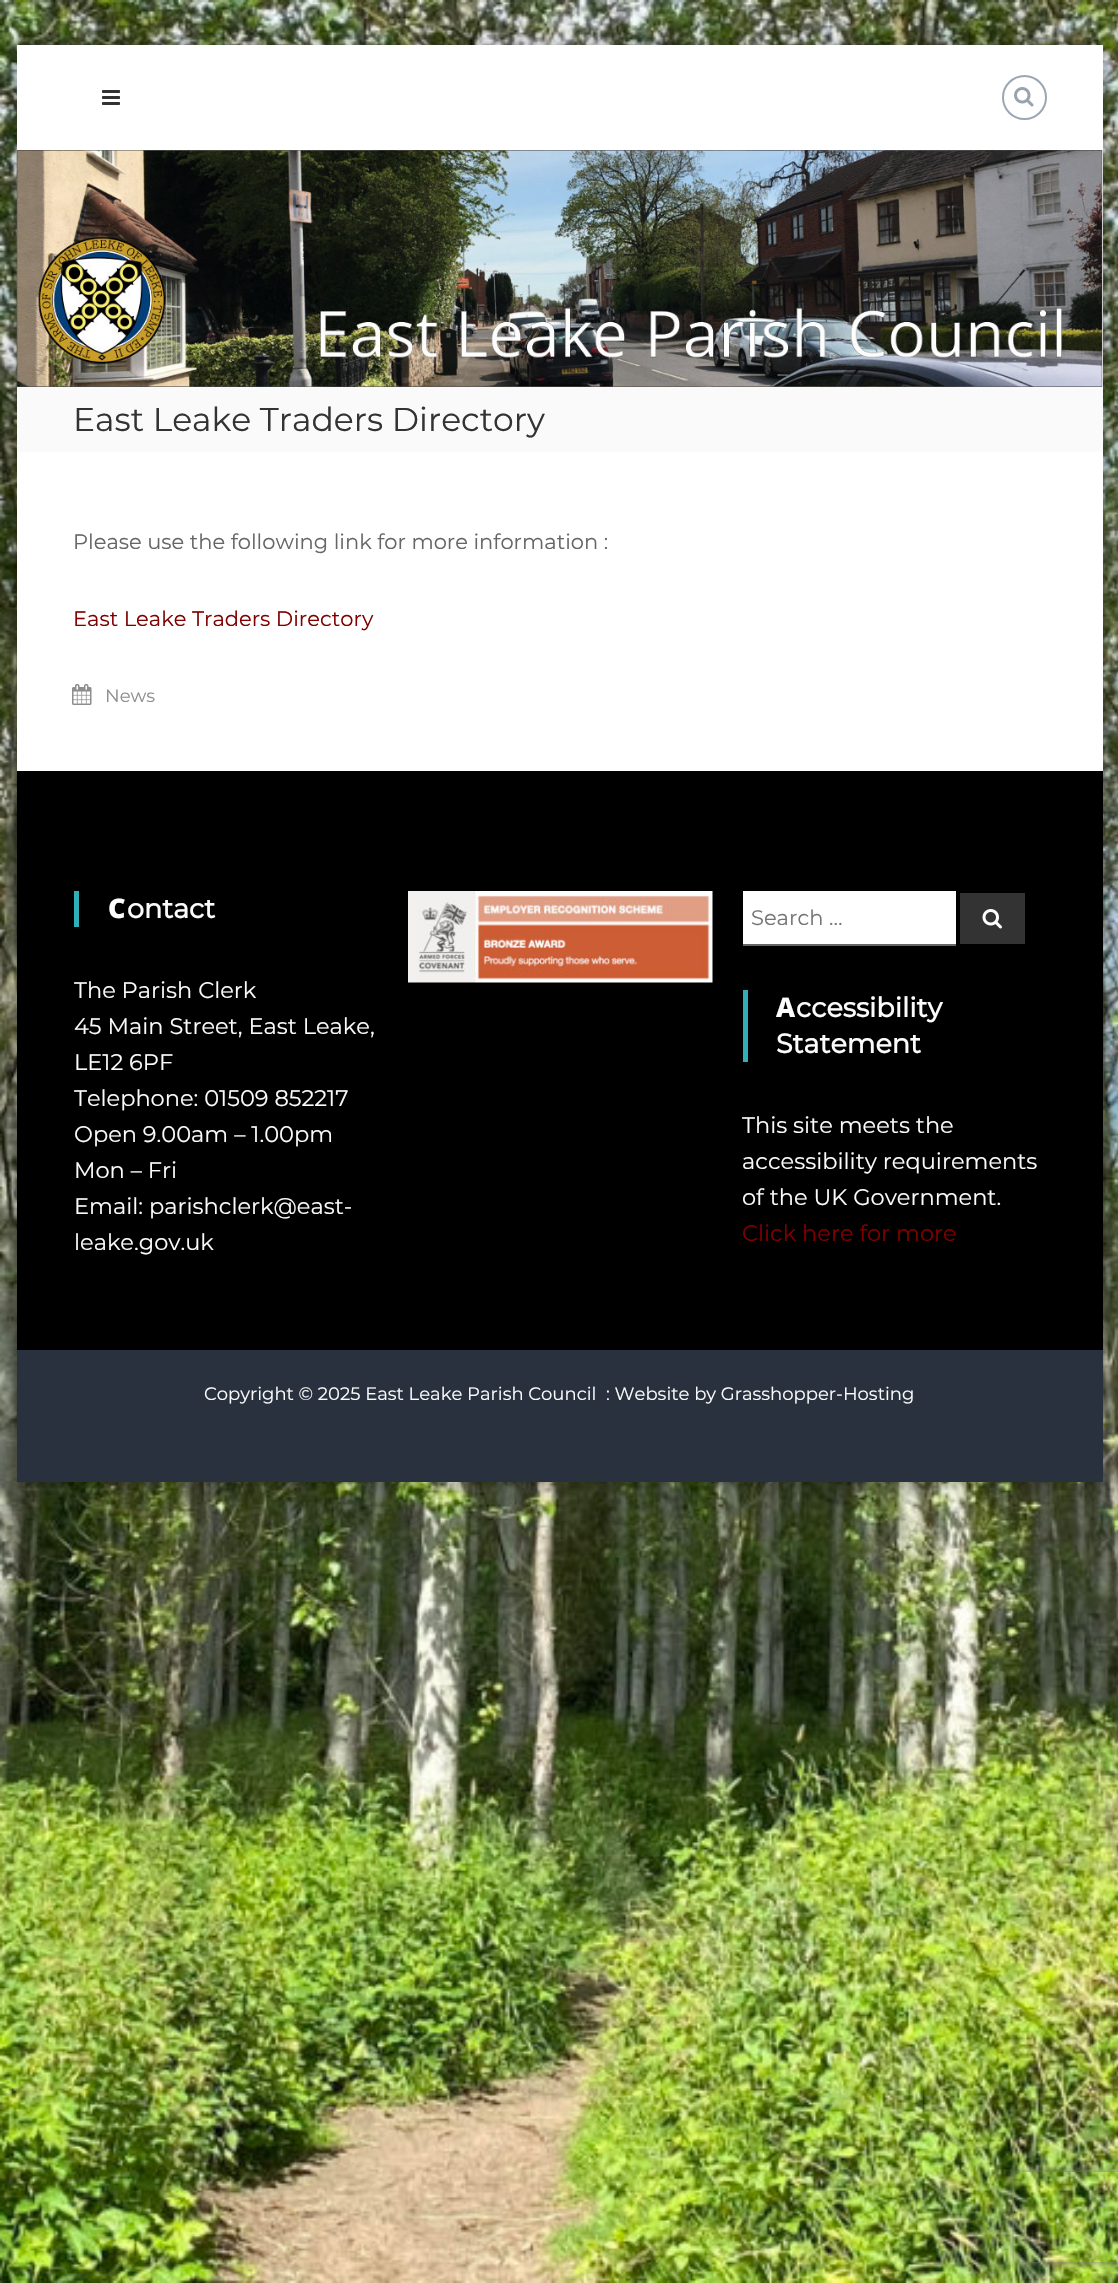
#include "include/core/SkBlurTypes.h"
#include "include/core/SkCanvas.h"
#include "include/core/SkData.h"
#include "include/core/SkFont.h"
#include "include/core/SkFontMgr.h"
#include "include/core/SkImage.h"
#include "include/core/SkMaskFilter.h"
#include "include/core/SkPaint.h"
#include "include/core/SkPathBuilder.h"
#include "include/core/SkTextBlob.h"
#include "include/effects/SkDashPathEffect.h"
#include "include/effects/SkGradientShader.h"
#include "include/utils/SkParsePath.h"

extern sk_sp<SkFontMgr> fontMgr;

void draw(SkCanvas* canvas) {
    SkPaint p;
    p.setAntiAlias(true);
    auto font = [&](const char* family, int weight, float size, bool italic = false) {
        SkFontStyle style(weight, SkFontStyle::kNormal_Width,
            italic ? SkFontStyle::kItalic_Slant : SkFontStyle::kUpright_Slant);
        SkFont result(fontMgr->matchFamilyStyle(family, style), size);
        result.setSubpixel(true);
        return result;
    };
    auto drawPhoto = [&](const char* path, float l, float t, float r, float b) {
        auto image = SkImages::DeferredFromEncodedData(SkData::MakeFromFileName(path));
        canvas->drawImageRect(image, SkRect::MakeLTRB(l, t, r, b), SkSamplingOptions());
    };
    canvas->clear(0xFFFFFFFF);
    drawPhoto("media/1.png", 0, 0, 1118, 2283);
    p.setColor(0x4D000000);
    p.setMaskFilter(SkMaskFilter::MakeBlur(kNormal_SkBlurStyle, 9));
    canvas->drawRect(SkRect::MakeLTRB(15, 44, 1104, 1484), p);
    p.setMaskFilter(nullptr);
    p.setColor(0xFFFFFFFF);
    canvas->drawRect(SkRect::MakeLTRB(17, 45, 1103, 771), p);
    drawPhoto("media/2.png", 102, 90, 120, 105);
    p.setStyle(SkPaint::kStroke_Style);
    p.setStrokeWidth(2);
    p.setColor(0xFF9CA6B2);
    canvas->drawCircle(1024.5f, 97.5f, 21.5f, p);
    drawPhoto("media/3.png", 1014, 87, 1034, 107);
    drawPhoto("media/4.png", 16, 150, 1103, 387);
    p.setStyle(SkPaint::kFill_Style);
    p.setColor(0xFFFAFAFA);
    canvas->drawRect(SkRect::MakeLTRB(17, 387, 1103, 452), p);
    auto font1 = font("Montserrat", 100, 33);
    p.setColor(0xFF333333);
    canvas->drawString("East Leake Traders Directory", 73, 431, font1, p);
    auto font2 = font("Montserrat", 100, 21);
    p.setColor(0xFF666666);
    canvas->drawString("Please use the following link for more information :", 73, 549, font2, p);
    p.setColor(0xFF800000);
    canvas->drawString("East Leake Traders Directory", 73, 626, font2, p);
    drawPhoto("media/5.png", 72, 684, 92, 705);
    auto font3 = font("Montserrat", 100, 18);
    p.setColor(0xFF8E8E8E);
    canvas->drawString("News", 105, 702, font3, p);
    p.setColor(0xFF000000);
    canvas->drawRect(SkRect::MakeLTRB(17, 771, 1103, 1350), p);
    p.setColor(0xFF30AFB8);
    canvas->drawRect(SkRect::MakeLTRB(74, 891, 79, 927), p);
    auto font4 = font("Noto Sans", 900, 27);
    p.setColor(0xFFFCFCFC);
    canvas->drawString("C", 108, 918, font4, p);
    auto font5 = font("Montserrat", 700, 27);
    canvas->drawString("ontact", 127, 918, font5, p);
    auto font6 = font("Montserrat", 100, 22.5f);
    {
        const struct { const char* s; float x, y; } items[] = {
            {"The Parish Clerk", 74, 998},
            {"45 Main Street, East Leake,", 74, 1034},
            {"LE12 6PF", 74, 1070},
            {"Telephone: 01509 852217", 74, 1106},
            {"Open 9.00am – 1.00pm", 74, 1142},
            {"Mon – Fri", 74, 1178},
            {"Email: parishclerk@east-", 74, 1214},
            {"leake.gov.uk", 74, 1250},
        };
        for (auto [s, x, y] : items) {
            canvas->drawString(s, x, y, font6, p);
        }
    }
    drawPhoto("media/6.png", 408, 891, 713, 983);
    p.setColor(0xFFFFFFFF);
    canvas->drawRect(SkRect::MakeLTRB(743, 891, 956, 944), p);
    p.setColor(0xFF666666);
    canvas->drawRect(SkRect::MakeLTRB(743, 944, 956, 946), p);
    p.setColor(0xFF757575);
    canvas->drawString("Search …", 751, 925, font2, p);
    p.setColor(0xFF333333);
    canvas->drawRect(SkRect::MakeLTRB(960, 893, 1025, 944), p);
    drawPhoto("media/7.png", 982, 909, 1002, 929);
    p.setColor(0xFF30AFB8);
    canvas->drawRect(SkRect::MakeLTRB(743, 990, 748, 1062), p);
    auto font7 = font("Noto Sans", 800, 27);
    p.setColor(0xFFFCFCFC);
    canvas->drawString("A", 776, 1017, font7, p);
    canvas->drawString("ccessibility", 796, 1017, font5, p);
    canvas->drawString("Statement", 776, 1053, font5, p);
    {
        const struct { const char* s; float x, y; } items[] = {
            {"This site meets the", 742, 1133},
            {"accessibility requirements", 742, 1169},
            {"of the UK Government.", 742, 1205},
        };
        for (auto [s, x, y] : items) {
            canvas->drawString(s, x, y, font6, p);
        }
    }
    p.setColor(0xFF800000);
    canvas->drawString("Click here for more", 742, 1241, font6, p);
    p.setColor(0xFF28313D);
    canvas->drawRect(SkRect::MakeLTRB(17, 1350, 1103, 1482), p);
    p.setColor(0xFFFCFCFC);
    canvas->drawString("Copyright © 2025 East Leake Parish Council", 204, 1400, font3, p);
    canvas->drawString(": Website by Grasshopper-Hosting", 606, 1400, font3, p);
    canvas->save();
    canvas->clipPath(SkPathBuilder(SkPathFillType::kEvenOdd).moveTo(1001, 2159).lineTo(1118, 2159).lineTo(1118, 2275).lineTo(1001, 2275).close().moveTo(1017, 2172).lineTo(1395, 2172).cubicTo(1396.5f, 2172, 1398, 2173.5f, 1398, 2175).lineTo(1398, 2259).cubicTo(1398, 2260.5f, 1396.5f, 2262, 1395, 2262).lineTo(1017, 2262).cubicTo(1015.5f, 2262, 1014, 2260.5f, 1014, 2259).lineTo(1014, 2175).cubicTo(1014, 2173.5f, 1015.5f, 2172, 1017, 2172).close().detach(), true);
    p.setColor(0xFF808080);
    p.setMaskFilter(SkMaskFilter::MakeBlur(kNormal_SkBlurStyle, 4));
    canvas->drawRoundRect(SkRect::MakeLTRB(1014, 2172, 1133, 2262), 3, 3, p);
    p.setMaskFilter(nullptr);
    canvas->restore();
}
